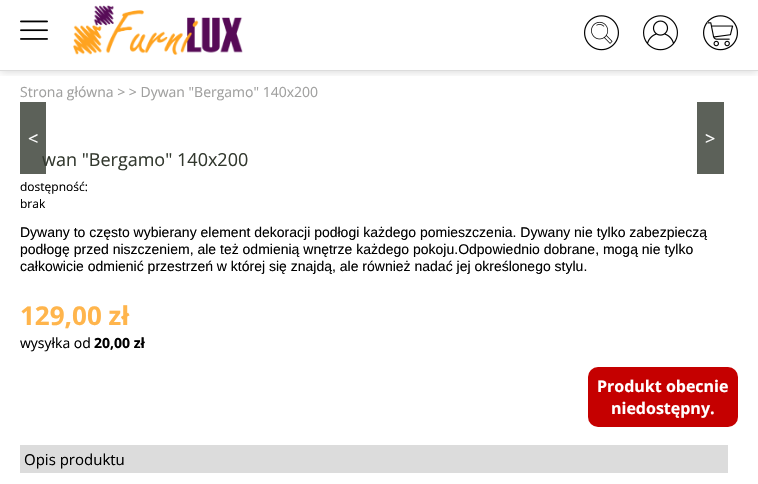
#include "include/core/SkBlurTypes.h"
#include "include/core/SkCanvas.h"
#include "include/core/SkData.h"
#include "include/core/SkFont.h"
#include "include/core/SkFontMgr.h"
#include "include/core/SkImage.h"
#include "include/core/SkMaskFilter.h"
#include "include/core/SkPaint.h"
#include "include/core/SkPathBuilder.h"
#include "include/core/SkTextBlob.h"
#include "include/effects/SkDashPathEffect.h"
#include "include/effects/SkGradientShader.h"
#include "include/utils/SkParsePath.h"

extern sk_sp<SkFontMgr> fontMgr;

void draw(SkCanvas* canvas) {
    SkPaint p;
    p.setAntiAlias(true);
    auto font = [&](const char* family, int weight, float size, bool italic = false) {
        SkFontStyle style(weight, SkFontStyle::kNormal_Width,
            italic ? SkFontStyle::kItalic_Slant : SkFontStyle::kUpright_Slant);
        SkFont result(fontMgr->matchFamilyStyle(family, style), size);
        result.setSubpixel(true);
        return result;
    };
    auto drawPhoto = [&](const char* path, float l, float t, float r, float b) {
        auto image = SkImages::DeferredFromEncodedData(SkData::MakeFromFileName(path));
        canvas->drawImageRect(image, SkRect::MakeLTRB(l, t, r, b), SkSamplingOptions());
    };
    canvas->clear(0xFFFFFFFF);
    canvas->save();
    canvas->clipRect(SkRect::MakeLTRB(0, 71, 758, 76));
    p.setColor(0x26000000);
    p.setMaskFilter(SkMaskFilter::MakeBlur(kNormal_SkBlurStyle, 4));
    canvas->drawRect(SkRect::MakeLTRB(0, 2, 758, 72), p);
    p.setMaskFilter(nullptr);
    canvas->restore();
    drawPhoto("media/1.png", 20, 20, 48, 40);
    drawPhoto("media/2.png", 73, 5, 243, 55);
    drawPhoto("media/3.png", 584, 15, 619, 51);
    drawPhoto("media/4.png", 643, 15, 678, 51);
    drawPhoto("media/5.png", 703, 15, 738, 51);
    p.setColor(0xFFDCDCDC);
    canvas->drawRect(SkRect::MakeLTRB(0, 70, 758, 71), p);
    auto font1 = font("Open Sans", 400, 14);
    p.setColor(0xFFA0A09F);
    canvas->drawString("Strona główna > > Dywan \"Bergamo\" 140x200", 20, 97, font1, p);
    auto font2 = font("Open Sans", 400, 18);
    p.setColor(0xFF33392F);
    canvas->drawString("wan \"Bergamo\" 140x200", 42, 166, font2, p);
    p.setColor(0xCC33392F);
    canvas->drawRect(SkRect::MakeLTRB(20, 102, 46, 174), p);
    p.setColor(0xFFFFFFFF);
    canvas->drawString("<", 28, 145, font2, p);
    p.setColor(0xFF5C6159);
    canvas->drawRect(SkRect::MakeLTRB(697, 102, 724, 174), p);
    p.setColor(0xFFFFFFFF);
    canvas->drawString(">", 705, 145, font2, p);
    auto font3 = font("Open Sans", 400, 12);
    p.setColor(0xFF000000);
    canvas->drawString("dostępność:", 20, 191, font3, p);
    canvas->drawString("brak", 20, 208, font3, p);
    auto font4 = font("Liberation Sans", 400, 14);
    {
        const struct { const char* s; float x, y; } items[] = {
            {"Dywany to często wybierany element dekoracji podłogi każdego pomieszczenia. Dywany nie tylko zabezpieczą", 20, 237},
            {"podłogę przed niszczeniem, ale też odmienią wnętrze każdego pokoju.Odpowiednio dobrane, mogą nie tylko", 20, 254},
            {"całkowicie odmienić przestrzeń w której się znajdą, ale również nadać jej określonego stylu.", 20, 271},
        };
        for (auto [s, x, y] : items) {
            canvas->drawString(s, x, y, font4, p);
        }
    }
    auto font5 = font("Open Sans", 700, 26);
    p.setColor(0xFFFFB54C);
    canvas->drawString("129,00 zł", 20, 325, font5, p);
    p.setColor(0xFF000000);
    canvas->drawString("wysyłka od", 20, 348, font1, p);
    auto font6 = font("Open Sans", 700, 14);
    canvas->drawString("20,00 zł", 94, 348, font6, p);
    p.setColor(0xFFC50000);
    canvas->drawRoundRect(SkRect::MakeLTRB(588, 367, 738, 427), 10, 10, p);
    auto font7 = font("Open Sans", 700, 16);
    p.setColor(0xFFFFFFFF);
    canvas->drawString("Produkt obecnie", 597, 392, font7, p);
    canvas->drawString("niedostępny.", 611, 414, font7, p);
    p.setColor(0xFFDCDCDC);
    canvas->drawRect(SkRect::MakeLTRB(20, 445, 728, 473), p);
    auto font8 = font("Open Sans", 400, 15);
    p.setColor(0xFF000000);
    canvas->drawString("Opis produktu", 24, 465, font8, p);
}
